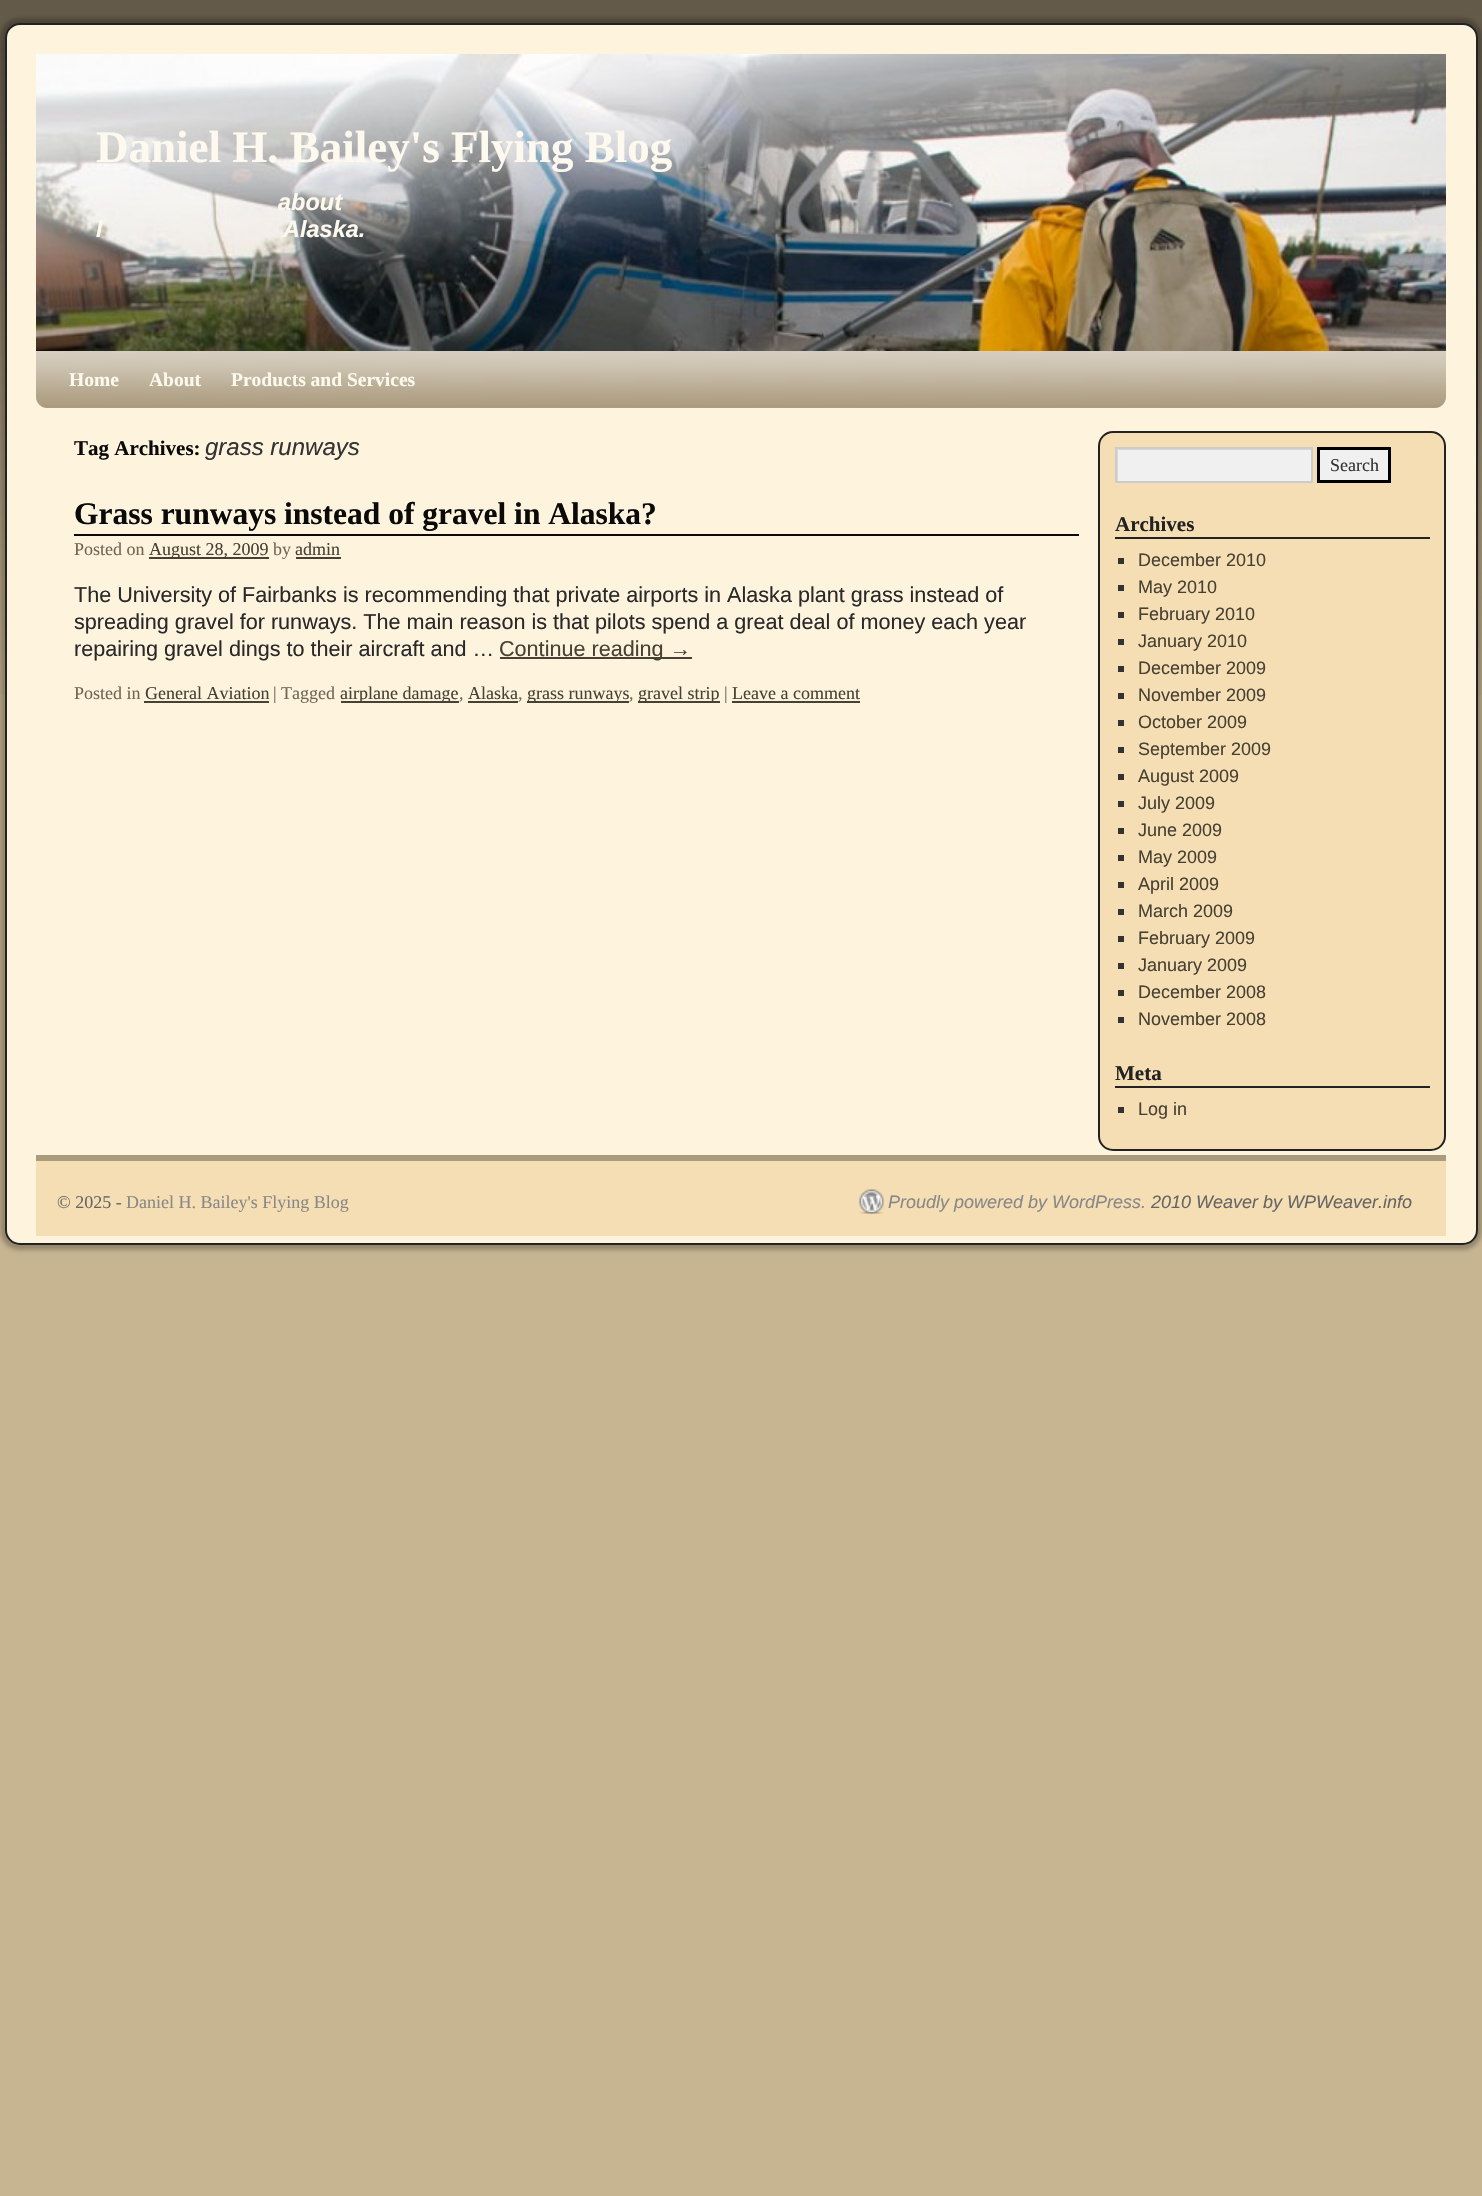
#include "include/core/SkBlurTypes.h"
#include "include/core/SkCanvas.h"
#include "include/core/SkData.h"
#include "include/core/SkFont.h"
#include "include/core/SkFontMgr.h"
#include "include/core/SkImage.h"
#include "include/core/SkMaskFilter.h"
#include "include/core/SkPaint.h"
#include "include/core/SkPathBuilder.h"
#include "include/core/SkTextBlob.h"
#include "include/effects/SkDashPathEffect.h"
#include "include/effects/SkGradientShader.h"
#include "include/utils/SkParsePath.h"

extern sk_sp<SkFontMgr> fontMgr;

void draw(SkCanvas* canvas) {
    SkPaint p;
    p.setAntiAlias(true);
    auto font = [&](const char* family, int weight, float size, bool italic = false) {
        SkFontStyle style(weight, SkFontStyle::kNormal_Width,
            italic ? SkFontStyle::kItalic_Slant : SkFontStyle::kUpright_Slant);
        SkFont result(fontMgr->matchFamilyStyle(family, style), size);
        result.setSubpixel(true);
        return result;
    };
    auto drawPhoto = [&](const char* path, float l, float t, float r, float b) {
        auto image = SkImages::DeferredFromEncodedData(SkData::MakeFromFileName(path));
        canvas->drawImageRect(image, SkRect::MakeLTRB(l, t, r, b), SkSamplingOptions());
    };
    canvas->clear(0xFFC7B491);
    drawPhoto("media/1.png", 0, 0, 1482, 695);
    p.setColor(0x40000000);
    p.setMaskFilter(SkMaskFilter::MakeBlur(kNormal_SkBlurStyle, 2));
    canvas->drawRoundRect(SkRect::MakeLTRB(0, 18, 1482, 1250), 20, 20, p);
    p.setMaskFilter(nullptr);
    p.setColor(0xFFFEF3DD);
    canvas->drawRoundRect(SkRect::MakeLTRB(6, 24, 1477, 1244), 14, 14, p);
    p.setStyle(SkPaint::kStroke_Style);
    p.setStrokeWidth(2);
    p.setColor(0xFF222222);
    canvas->drawRoundRect(SkRect::MakeLTRB(6, 24, 1477, 1244), 14, 14, p);
    drawPhoto("media/2.png", 36, 54, 1446, 351);
    auto font1 = font("Liberation Serif", 700, 45);
    p.setStyle(SkPaint::kFill_Style);
    p.setColor(0xFFFEF9EE);
    canvas->drawString("Daniel H. Bailey's Flying Blog", 96, 162, font1, p);
    auto font2 = font("Liberation Sans", 700, 23.5f, true);
    {
        const struct { const char* s; float x, y; } items[] = {
            {"about", 278, 210},
            {"l", 96, 237},
            {"Alaska.", 283, 237},
        };
        for (auto [s, x, y] : items) {
            canvas->drawString(s, x, y, font2, p);
        }
    }
    p.setColor(0xFFAB9B7D);
    canvas->drawPath(SkPathBuilder().moveTo(36, 351).lineTo(1446, 351).lineTo(1446, 397).cubicTo(1446, 403, 1441, 408, 1435, 408).lineTo(47, 408).cubicTo(41, 408, 36, 403, 36, 397).close().detach(), p);
    drawPhoto("media/3.png", 36, 351, 1446, 405);
    auto font3 = font("Liberation Serif", 700, 19.5f);
    p.setColor(0xFFFEF9EE);
    {
        const struct { const char* s; float x, y; } items[] = {
            {"Home", 69, 386},
            {"About", 149, 386},
            {"Products and Services", 231, 386},
        };
        for (auto [s, x, y] : items) {
            canvas->drawString(s, x, y, font3, p);
        }
    }
    auto font4 = font("Liberation Serif", 700, 21);
    p.setColor(0xFF0A0A0A);
    canvas->drawString("Tag Archives:", 74, 455, font4, p);
    auto font5 = font("Liberation Sans", 400, 24, true);
    p.setColor(0xFF333333);
    canvas->drawString("grass runways", 205, 455, font5, p);
    p.setColor(0xFF0A0A0A);
    canvas->drawRect(SkRect::MakeLTRB(74, 534, 1079, 536), p);
    auto font6 = font("Liberation Serif", 700, 31.5f);
    canvas->drawString("Grass runways instead of gravel in Alaska?", 74, 524, font6, p);
    auto font7 = font("Liberation Serif", 400, 18);
    p.setColor(0xFF706752);
    canvas->drawString("Posted on", 74, 555, font7, p);
    p.setColor(0xFF474134);
    canvas->drawRect(SkRect::MakeLTRB(149, 557, 269, 559), p);
    canvas->drawString("August 28, 2009", 149, 555, font7, p);
    p.setColor(0xFF706752);
    canvas->drawString("by", 273, 555, font7, p);
    p.setColor(0xFF474134);
    canvas->drawString("admin", 295, 555, font7, p);
    canvas->drawRect(SkRect::MakeLTRB(296, 557, 341, 559), p);
    auto font8 = font("Liberation Sans", 400, 21.6f);
    p.setColor(0xFF292929);
    {
        const struct { const char* s; float x, y; } items[] = {
            {"The University of Fairbanks is recommending that private airports in Alaska plant grass instead of", 74, 602},
            {"spreading gravel for runways. The main reason is that pilots spend a great deal of money each year", 74, 629},
            {"repairing gravel dings to their aircraft and …", 74, 656},
        };
        for (auto [s, x, y] : items) {
            canvas->drawString(s, x, y, font8, p);
        }
    }
    p.setColor(0xFF474134);
    canvas->drawRect(SkRect::MakeLTRB(500, 657, 692, 659), p);
    canvas->drawString("Continue reading →", 499, 656, font8, p);
    p.setColor(0xFF706752);
    canvas->drawString("Posted in", 74, 699, font7, p);
    p.setColor(0xFF474134);
    canvas->drawString("General Aviation", 145, 699, font7, p);
    canvas->drawRect(SkRect::MakeLTRB(144, 701, 269, 703), p);
    p.setColor(0xFF706752);
    canvas->drawString("| Tagged", 273, 699, font7, p);
    p.setColor(0xFF474134);
    canvas->drawRect(SkRect::MakeLTRB(341, 701, 459, 703), p);
    canvas->drawString("airplane damage", 340, 699, font7, p);
    p.setColor(0xFF706752);
    canvas->drawString(",", 459, 699, font7, p);
    p.setColor(0xFF474134);
    canvas->drawString("Alaska", 468, 699, font7, p);
    p.setColor(0xFF706752);
    canvas->drawString(",", 518, 699, font7, p);
    p.setColor(0xFF474134);
    canvas->drawRect(SkRect::MakeLTRB(468, 701, 518, 703), p);
    canvas->drawRect(SkRect::MakeLTRB(527, 701, 629, 703), p);
    canvas->drawString("grass runways", 527, 699, font7, p);
    p.setColor(0xFF706752);
    canvas->drawString(",", 629, 699, font7, p);
    p.setColor(0xFF474134);
    canvas->drawRect(SkRect::MakeLTRB(638, 701, 720, 703), p);
    canvas->drawString("gravel strip", 638, 699, font7, p);
    p.setColor(0xFF706752);
    canvas->drawString("|", 724, 699, font7, p);
    p.setColor(0xFF474134);
    canvas->drawString("Leave a comment", 732, 699, font7, p);
    canvas->drawRect(SkRect::MakeLTRB(732, 701, 860, 703), p);
    p.setColor(0xFFF5DEB3);
    canvas->drawRoundRect(SkRect::MakeLTRB(1099, 432, 1445, 1150), 14, 14, p);
    p.setStyle(SkPaint::kStroke_Style);
    p.setColor(0xFF222222);
    canvas->drawRoundRect(SkRect::MakeLTRB(1099, 432, 1445, 1150), 14, 14, p);
    p.setStyle(SkPaint::kFill_Style);
    p.setColor(0xFFF0F0F0);
    canvas->drawRect(SkRect::MakeLTRB(1118, 450, 1311, 481), p);
    canvas->save();
    canvas->clipRect(SkRect::MakeLTRB(1116, 449, 1311, 482));
    p.setColor(0xFFD8D8D8);
    canvas->drawPath(SkPathBuilder(SkPathFillType::kEvenOdd).moveTo(1114, 432).lineTo(1431, 432).cubicTo(1439, 432, 1445, 438, 1445, 446).lineTo(1445, 630).lineTo(1100, 630).lineTo(1100, 446).cubicTo(1100, 438, 1106, 432, 1114, 432).close().moveTo(1118, 450).lineTo(1118, 483).lineTo(1312, 483).lineTo(1312, 450).close().detach(), p);
    canvas->restore();
    p.setStyle(SkPaint::kStroke_Style);
    p.setColor(0xFFCCCCCC);
    canvas->drawRect(SkRect::MakeLTRB(1116, 448, 1312, 482), p);
    p.setStyle(SkPaint::kFill_Style);
    p.setColor(0xFFF0F0F0);
    canvas->drawRect(SkRect::MakeLTRB(1318.5f, 448.5f, 1389.5f, 481.5f), p);
    p.setStyle(SkPaint::kStroke_Style);
    p.setStrokeWidth(3);
    p.setColor(0xFF000000);
    canvas->drawRect(SkRect::MakeLTRB(1318.5f, 448.5f, 1389.5f, 481.5f), p);
    p.setStyle(SkPaint::kFill_Style);
    p.setColor(0xFF333333);
    canvas->drawString("Search", 1330, 471, font7, p);
    p.setColor(0xFF222222);
    canvas->drawRect(SkRect::MakeLTRB(1115, 537, 1430, 539), p);
    canvas->drawString("Archives", 1115, 531, font4, p);
    p.setColor(0xFF333333);
    canvas->drawRect(SkRect::MakeLTRB(1118, 558, 1124, 564), p);
    auto font9 = font("Liberation Sans", 400, 18);
    p.setColor(0xFF474134);
    canvas->drawString("December 2010", 1138, 566, font9, p);
    p.setColor(0xFF333333);
    canvas->drawRect(SkRect::MakeLTRB(1118, 585, 1124, 591), p);
    p.setColor(0xFF474134);
    canvas->drawString("May 2010", 1138, 593, font9, p);
    p.setColor(0xFF333333);
    canvas->drawRect(SkRect::MakeLTRB(1118, 612, 1124, 618), p);
    p.setColor(0xFF474134);
    canvas->drawString("February 2010", 1138, 620, font9, p);
    p.setColor(0xFF333333);
    canvas->drawRect(SkRect::MakeLTRB(1118, 639, 1124, 645), p);
    p.setColor(0xFF474134);
    canvas->drawString("January 2010", 1138, 647, font9, p);
    p.setColor(0xFF333333);
    canvas->drawRect(SkRect::MakeLTRB(1118, 666, 1124, 672), p);
    p.setColor(0xFF474134);
    canvas->drawString("December 2009", 1138, 674, font9, p);
    p.setColor(0xFF333333);
    canvas->drawRect(SkRect::MakeLTRB(1118, 693, 1124, 699), p);
    p.setColor(0xFF474134);
    canvas->drawString("November 2009", 1138, 701, font9, p);
    p.setColor(0xFF333333);
    canvas->drawRect(SkRect::MakeLTRB(1118, 720, 1124, 726), p);
    p.setColor(0xFF474134);
    canvas->drawString("October 2009", 1138, 728, font9, p);
    p.setColor(0xFF333333);
    canvas->drawRect(SkRect::MakeLTRB(1118, 747, 1124, 753), p);
    p.setColor(0xFF474134);
    canvas->drawString("September 2009", 1138, 755, font9, p);
    p.setColor(0xFF333333);
    canvas->drawRect(SkRect::MakeLTRB(1118, 774, 1124, 780), p);
    p.setColor(0xFF474134);
    canvas->drawString("August 2009", 1138, 782, font9, p);
    p.setColor(0xFF333333);
    canvas->drawRect(SkRect::MakeLTRB(1118, 801, 1124, 807), p);
    p.setColor(0xFF474134);
    canvas->drawString("July 2009", 1138, 809, font9, p);
    p.setColor(0xFF333333);
    canvas->drawRect(SkRect::MakeLTRB(1118, 828, 1124, 834), p);
    p.setColor(0xFF474134);
    canvas->drawString("June 2009", 1138, 836, font9, p);
    p.setColor(0xFF333333);
    canvas->drawRect(SkRect::MakeLTRB(1118, 855, 1124, 861), p);
    p.setColor(0xFF474134);
    canvas->drawString("May 2009", 1138, 863, font9, p);
    p.setColor(0xFF333333);
    canvas->drawRect(SkRect::MakeLTRB(1118, 882, 1124, 888), p);
    p.setColor(0xFF474134);
    canvas->drawString("April 2009", 1138, 890, font9, p);
    p.setColor(0xFF333333);
    canvas->drawRect(SkRect::MakeLTRB(1118, 909, 1124, 915), p);
    p.setColor(0xFF474134);
    canvas->drawString("March 2009", 1138, 917, font9, p);
    p.setColor(0xFF333333);
    canvas->drawRect(SkRect::MakeLTRB(1118, 936, 1124, 942), p);
    p.setColor(0xFF474134);
    canvas->drawString("February 2009", 1138, 944, font9, p);
    p.setColor(0xFF333333);
    canvas->drawRect(SkRect::MakeLTRB(1118, 963, 1124, 969), p);
    p.setColor(0xFF474134);
    canvas->drawString("January 2009", 1138, 971, font9, p);
    p.setColor(0xFF333333);
    canvas->drawRect(SkRect::MakeLTRB(1118, 990, 1124, 996), p);
    p.setColor(0xFF474134);
    canvas->drawString("December 2008", 1138, 998, font9, p);
    p.setColor(0xFF333333);
    canvas->drawRect(SkRect::MakeLTRB(1118, 1017, 1124, 1023), p);
    p.setColor(0xFF474134);
    canvas->drawString("November 2008", 1138, 1025, font9, p);
    p.setColor(0xFF222222);
    canvas->drawRect(SkRect::MakeLTRB(1115, 1086, 1430, 1088), p);
    canvas->drawString("Meta", 1115, 1080, font4, p);
    p.setColor(0xFF333333);
    canvas->drawRect(SkRect::MakeLTRB(1118, 1107, 1124, 1113), p);
    p.setColor(0xFF474134);
    canvas->drawString("Log in", 1138, 1115, font9, p);
    p.setColor(0xFFF5DEB3);
    canvas->drawRect(SkRect::MakeLTRB(36, 1161, 1446, 1236), p);
    p.setColor(0xFFAB9B7D);
    canvas->drawRect(SkRect::MakeLTRB(36, 1155, 1446, 1161), p);
    p.setColor(0xFF666666);
    canvas->drawString("© 2025 -", 57, 1208, font7, p);
    p.setColor(0xFF888888);
    canvas->drawString("Daniel H. Bailey's Flying Blog", 126, 1208, font7, p);
    drawPhoto("media/4.png", 859, 1189, 884, 1214);
    auto font10 = font("Liberation Sans", 400, 18, true);
    canvas->drawString("Proudly powered by WordPress.", 888, 1208, font10, p);
    p.setColor(0xFF666666);
    canvas->drawString("2010 Weaver by WPWeaver.info", 1151, 1208, font10, p);
}
